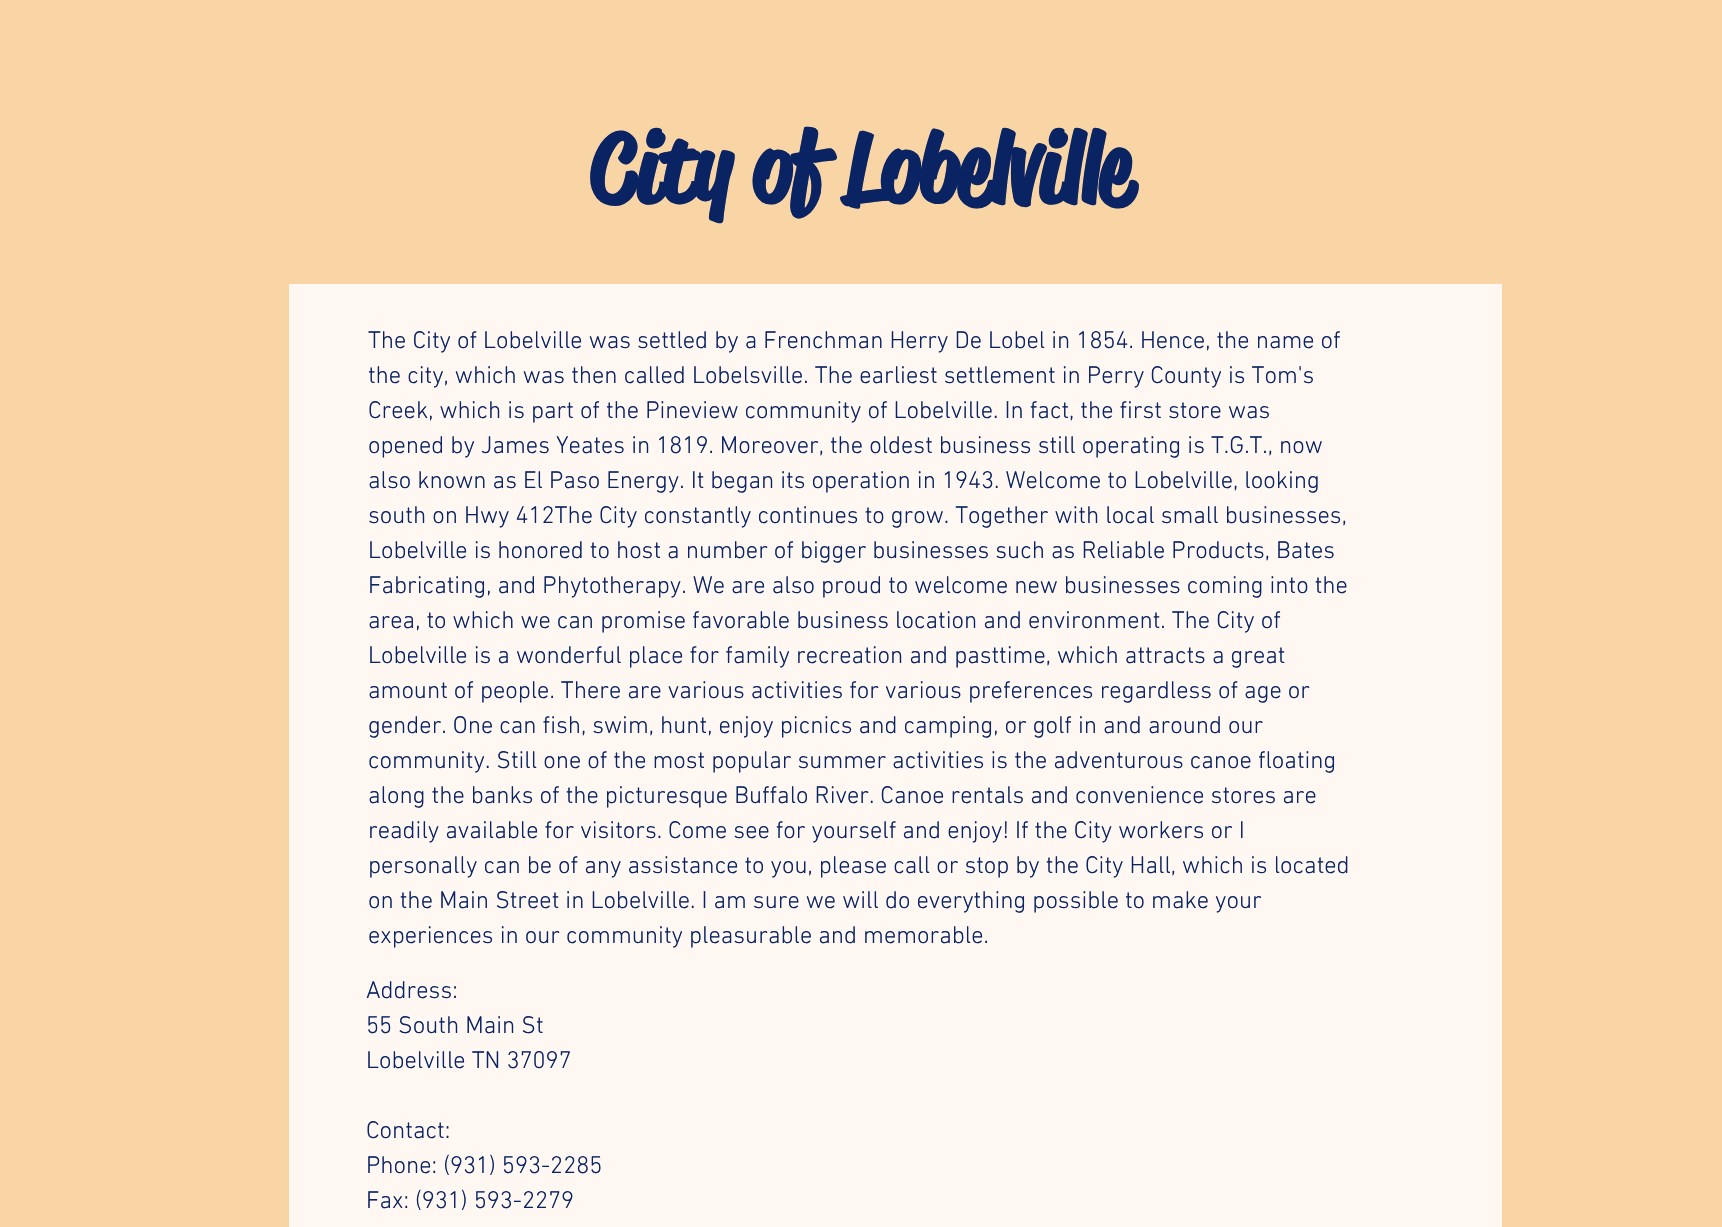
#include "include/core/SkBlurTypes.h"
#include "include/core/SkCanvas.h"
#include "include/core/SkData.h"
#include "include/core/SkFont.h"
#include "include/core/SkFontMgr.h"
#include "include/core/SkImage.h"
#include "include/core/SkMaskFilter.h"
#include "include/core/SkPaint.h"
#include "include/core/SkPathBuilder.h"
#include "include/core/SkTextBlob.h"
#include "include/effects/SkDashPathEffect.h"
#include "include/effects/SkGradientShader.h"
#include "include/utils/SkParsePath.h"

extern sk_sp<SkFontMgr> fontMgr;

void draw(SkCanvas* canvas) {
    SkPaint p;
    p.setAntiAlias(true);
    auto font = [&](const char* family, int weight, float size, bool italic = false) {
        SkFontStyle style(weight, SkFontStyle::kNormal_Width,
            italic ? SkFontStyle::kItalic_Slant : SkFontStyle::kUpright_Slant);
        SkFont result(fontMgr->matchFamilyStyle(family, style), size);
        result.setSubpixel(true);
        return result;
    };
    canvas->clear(0xFFF9D5A6);
    auto font1 = font("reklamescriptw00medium", 700, 94.5f);
    p.setColor(0xFF0A2363);
    canvas->drawString("City of Lobelville", 589, 201, font1, p);
    p.setColor(0xFFFFF8F2);
    canvas->drawRect(SkRect::MakeLTRB(289, 284, 1502, 1227), p);
    auto font2 = font("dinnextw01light", 300, 24.5f);
    p.setColor(0xFF0A2363);
    {
        const struct { const char* s; float x, y; } items[] = {
            {"The City of Lobelville was settled by a Frenchman Herry De Lobel in 1854. Hence, the name of", 368, 348},
            {"the city, which was then called Lobelsville. The earliest settlement in Perry County is Tom's", 368, 383},
            {"Creek, which is part of the Pineview community of Lobelville. In fact, the first store was", 368, 418},
            {"opened by James Yeates in 1819. Moreover, the oldest business still operating is T.G.T., now", 368, 453},
            {"also known as El Paso Energy. It began its operation in 1943. Welcome to Lobelville, looking", 368, 488},
            {"south on Hwy 412The City constantly continues to grow. Together with local small businesses,", 368, 523},
            {"Lobelville is honored to host a number of bigger businesses such as Reliable Products, Bates", 368, 558},
            {"Fabricating, and Phytotherapy. We are also proud to welcome new businesses coming into the", 368, 593},
            {"area, to which we can promise favorable business location and environment. The City of", 368, 628},
            {"Lobelville is a wonderful place for family recreation and pasttime, which attracts a great", 368, 663},
            {"amount of people. There are various activities for various preferences regardless of age or", 368, 698},
            {"gender. One can fish, swim, hunt, enjoy picnics and camping, or golf in and around our", 368, 733},
            {"community. Still one of the most popular summer activities is the adventurous canoe floating", 368, 768},
            {"along the banks of the picturesque Buffalo River. Canoe rentals and convenience stores are", 368, 803},
            {"readily available for visitors. Come see for yourself and enjoy! If the City workers or I", 368, 838},
            {"personally can be of any assistance to you, please call or stop by the City Hall, which is located", 368, 873},
            {"on the Main Street in Lobelville. I am sure we will do everything possible to make your", 368, 908},
            {"experiences in our community pleasurable and memorable.", 368, 943},
            {"Address:", 366, 998},
            {"55 South Main St", 366, 1033},
            {"Lobelville TN 37097", 366, 1068},
            {"Contact:", 366, 1138},
            {"Phone: (931) 593-2285", 366, 1173},
            {"Fax: (931) 593-2279", 366, 1208},
        };
        for (auto [s, x, y] : items) {
            canvas->drawString(s, x, y, font2, p);
        }
    }
}
